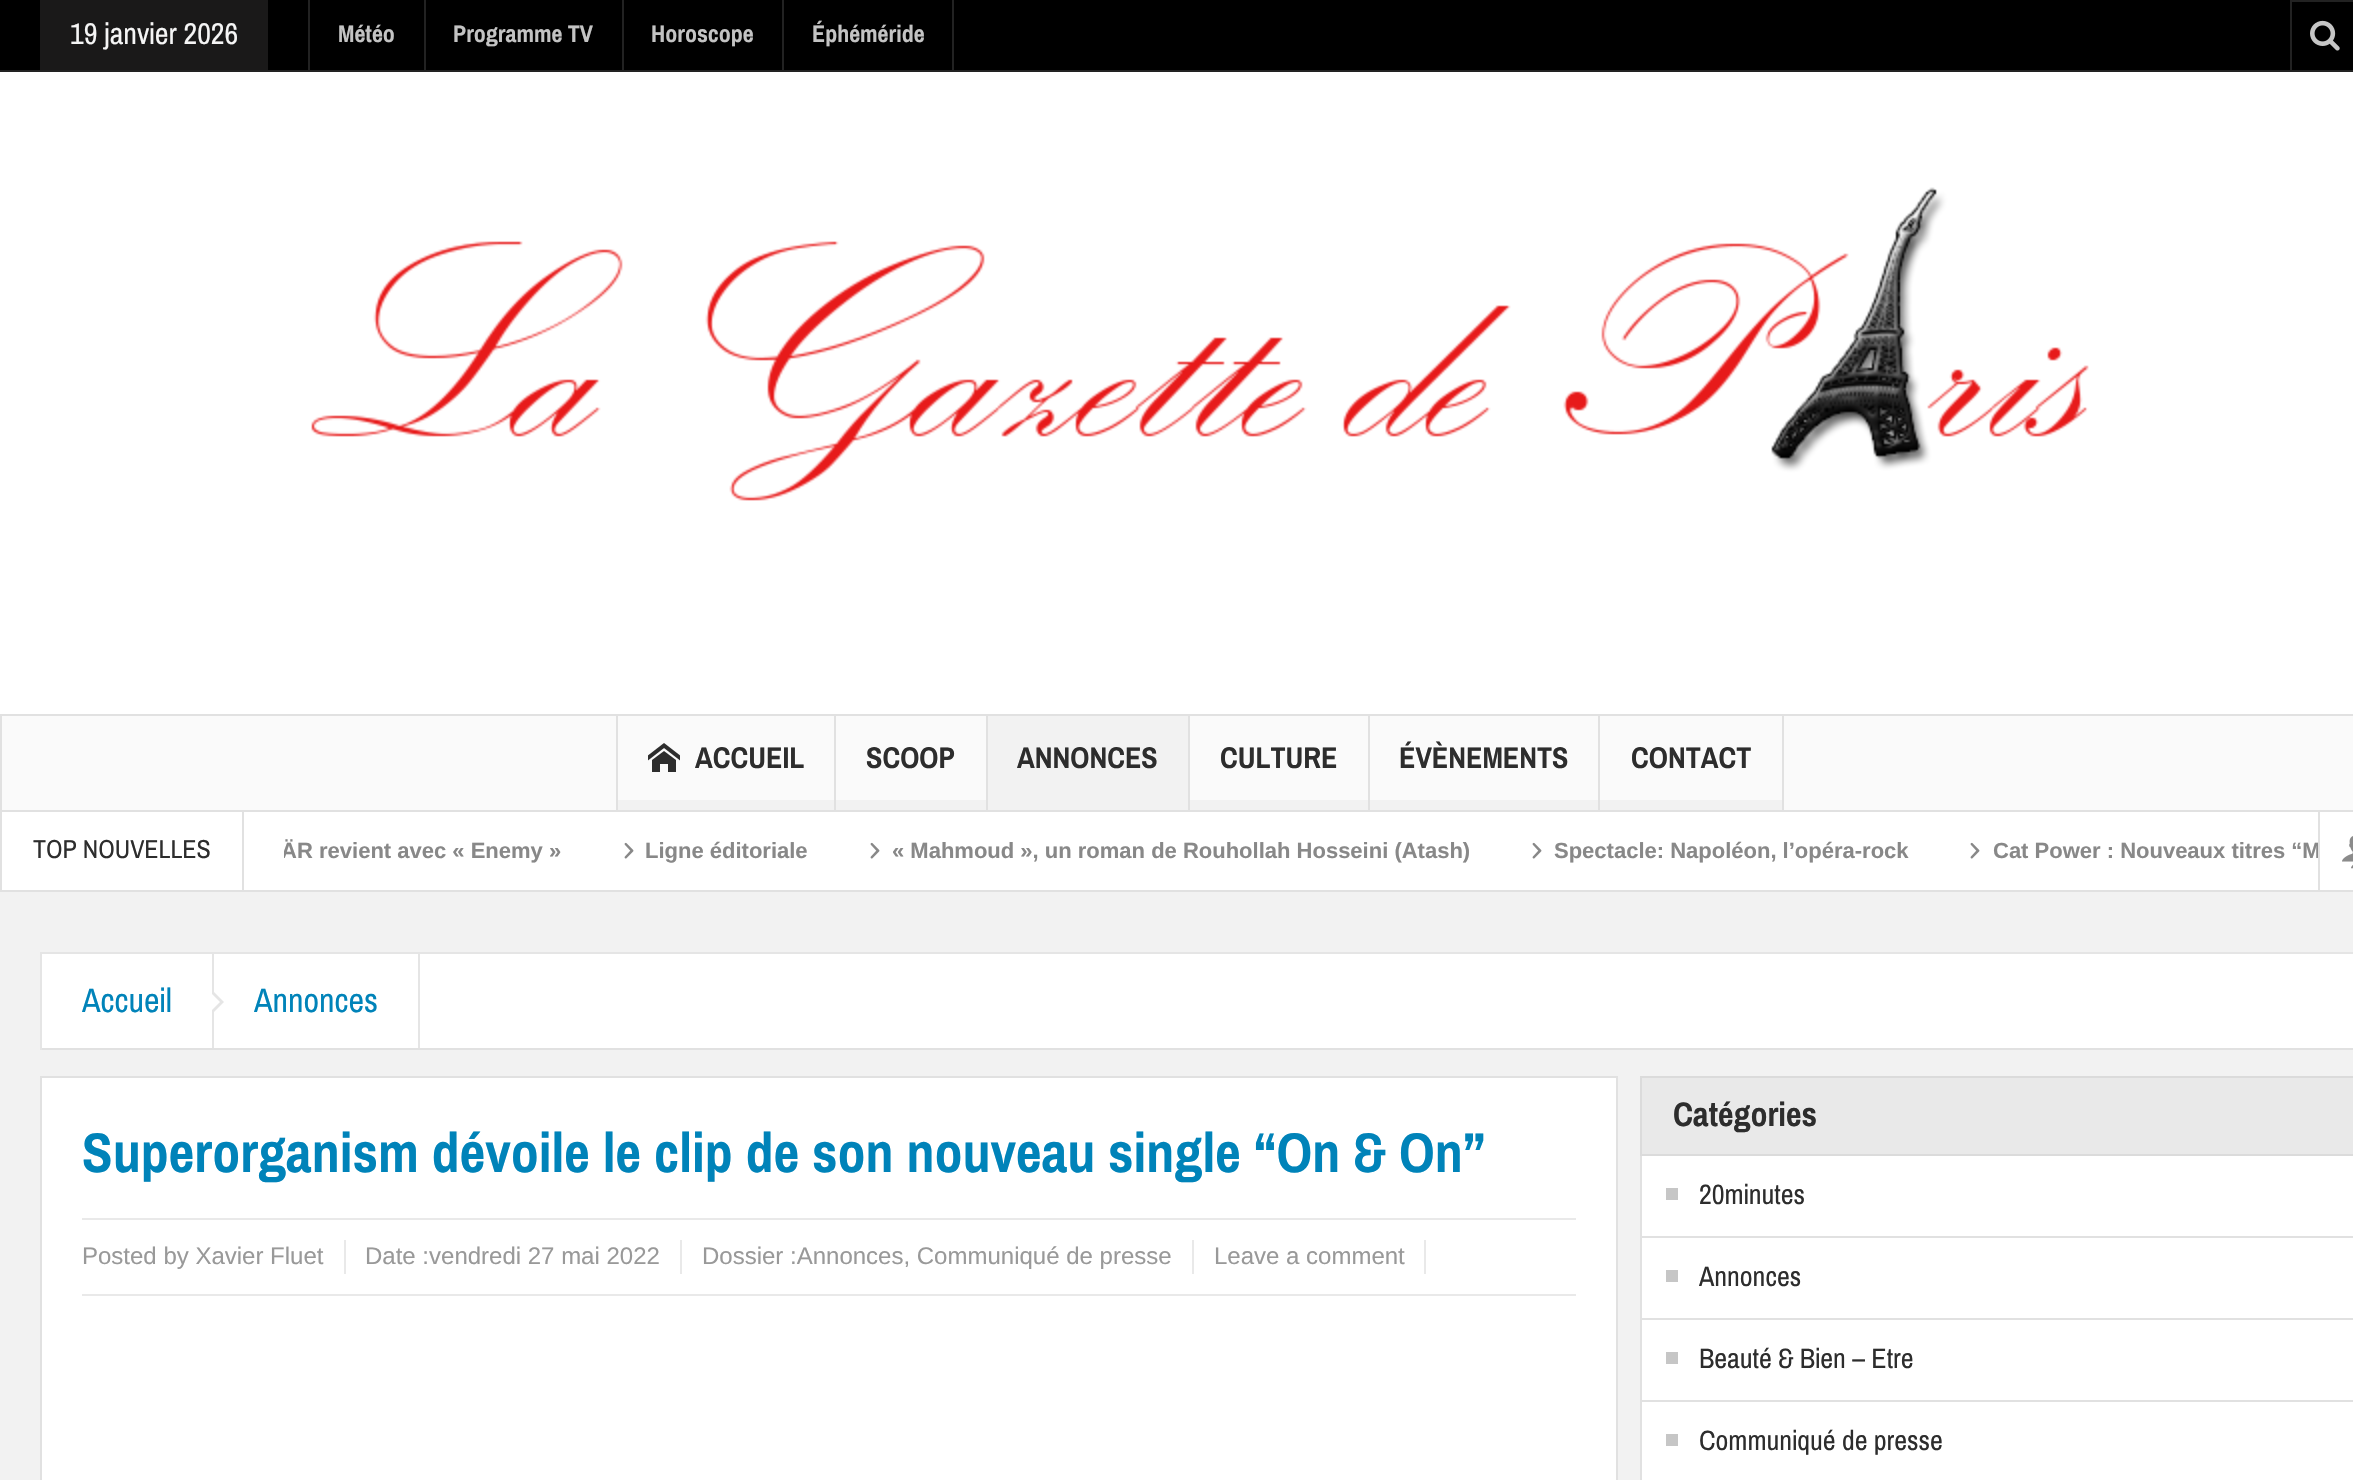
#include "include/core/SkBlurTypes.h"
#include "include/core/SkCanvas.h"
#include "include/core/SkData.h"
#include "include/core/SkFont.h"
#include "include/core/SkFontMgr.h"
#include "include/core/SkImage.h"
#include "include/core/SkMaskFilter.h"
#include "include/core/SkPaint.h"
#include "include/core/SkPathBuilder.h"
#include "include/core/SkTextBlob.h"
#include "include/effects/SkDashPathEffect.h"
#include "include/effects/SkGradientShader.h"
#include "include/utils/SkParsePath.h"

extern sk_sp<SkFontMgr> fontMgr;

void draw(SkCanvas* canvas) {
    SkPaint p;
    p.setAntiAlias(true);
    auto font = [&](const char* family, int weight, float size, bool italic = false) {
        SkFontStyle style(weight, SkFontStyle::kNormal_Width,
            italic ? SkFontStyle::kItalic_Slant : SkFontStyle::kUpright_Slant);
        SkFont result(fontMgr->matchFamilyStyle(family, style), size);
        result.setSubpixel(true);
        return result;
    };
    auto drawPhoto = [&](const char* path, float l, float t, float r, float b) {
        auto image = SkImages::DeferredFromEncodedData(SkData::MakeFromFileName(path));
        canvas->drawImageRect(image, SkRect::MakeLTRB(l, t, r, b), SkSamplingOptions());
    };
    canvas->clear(0xFFF2F2F2);
    {
        const struct { float l, t, r, b; SkColor color; } items[] = {
            {0, 0, 2353, 70, 0xFF000000},
            {0, 70, 2353, 72, 0xFF222222},
            {40, 0, 268, 70, 0xFF1A1919},
        };
        for (auto [l, t, r, b, color] : items) {
            p.setColor(color);
            canvas->drawRect(SkRect::MakeLTRB(l, t, r, b), p);
        }
    }
    auto font1 = font("Archivo Narrow", 400, 30);
    p.setColor(0xFFF5F5F5);
    canvas->drawString("19 janvier 2026", 70, 44, font1, p);
    p.setColor(0xFF222222);
    canvas->drawRect(SkRect::MakeLTRB(424, 0, 426, 70), p);
    canvas->drawRect(SkRect::MakeLTRB(308, 0, 310, 70), p);
    auto font2 = font("Archivo Narrow", 700, 24);
    p.setColor(0xFFC3C3C3);
    canvas->drawString("Météo", 338, 42, font2, p);
    p.setColor(0xFF222222);
    canvas->drawRect(SkRect::MakeLTRB(622, 0, 624, 70), p);
    p.setColor(0xFFC3C3C3);
    canvas->drawString("Programme TV", 453, 42, font2, p);
    p.setColor(0xFF222222);
    canvas->drawRect(SkRect::MakeLTRB(782, 0, 784, 70), p);
    p.setColor(0xFFC3C3C3);
    canvas->drawString("Horoscope", 651, 42, font2, p);
    p.setColor(0xFF222222);
    canvas->drawRect(SkRect::MakeLTRB(952, 0, 954, 70), p);
    p.setColor(0xFFC3C3C3);
    canvas->drawString("Éphéméride", 812, 42, font2, p);
    p.setColor(0xFF222222);
    canvas->drawRect(SkRect::MakeLTRB(2290, 0, 2353, 2), p);
    canvas->drawRect(SkRect::MakeLTRB(2290, 0, 2292, 70), p);
    drawPhoto("media/1.png", 2310, 20, 2340, 51);
    p.setColor(0xFFFFFFFF);
    canvas->drawRect(SkRect::MakeLTRB(0, 72, 2353, 714), p);
    drawPhoto("media/2.png", 311, 187, 2089, 501);
    p.setColor(0xFFFAFAFA);
    canvas->drawRect(SkRect::MakeLTRB(1, 715, 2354, 811), p);
    p.setStyle(SkPaint::kStroke_Style);
    p.setStrokeWidth(2);
    p.setColor(0xFFE1E1E1);
    canvas->drawRect(SkRect::MakeLTRB(1, 715, 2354, 811), p);
    p.setStyle(SkPaint::kFill_Style);
    canvas->drawRect(SkRect::MakeLTRB(834, 716, 836, 810), p);
    canvas->drawRect(SkRect::MakeLTRB(616, 716, 618, 810), p);
    drawPhoto("media/3.png", 648, 743, 680, 772);
    auto font3 = font("Archivo Narrow", 700, 30);
    p.setColor(0xFF2D2D2D);
    canvas->drawString("ACCUEIL", 695, 768, font3, p);
    p.setColor(0xFFF2F2F2);
    canvas->drawRect(SkRect::MakeLTRB(618, 800, 834, 810), p);
    p.setColor(0xFFE1E1E1);
    canvas->drawRect(SkRect::MakeLTRB(986, 716, 988, 810), p);
    p.setColor(0xFF2D2D2D);
    canvas->drawString("SCOOP", 866, 768, font3, p);
    {
        const struct { float l, t, r, b; SkColor color; } items[] = {
            {836, 800, 986, 810, 0xFFF2F2F2},
            {988, 716, 1188, 810, 0xFFF2F2F2},
            {1188, 716, 1190, 810, 0xFFE1E1E1},
        };
        for (auto [l, t, r, b, color] : items) {
            p.setColor(color);
            canvas->drawRect(SkRect::MakeLTRB(l, t, r, b), p);
        }
    }
    p.setColor(0xFF2D2D2D);
    canvas->drawString("ANNONCES", 1017, 768, font3, p);
    p.setColor(0xFFE1E1E1);
    canvas->drawRect(SkRect::MakeLTRB(1368, 716, 1370, 810), p);
    p.setColor(0xFF2D2D2D);
    canvas->drawString("CULTURE", 1220, 768, font3, p);
    p.setColor(0xFFF2F2F2);
    canvas->drawRect(SkRect::MakeLTRB(1190, 800, 1368, 810), p);
    p.setColor(0xFFE1E1E1);
    canvas->drawRect(SkRect::MakeLTRB(1598, 716, 1600, 810), p);
    p.setColor(0xFF2D2D2D);
    canvas->drawString("ÉVÈNEMENTS", 1399, 768, font3, p);
    p.setColor(0xFFF2F2F2);
    canvas->drawRect(SkRect::MakeLTRB(1370, 800, 1598, 810), p);
    p.setColor(0xFFE1E1E1);
    canvas->drawRect(SkRect::MakeLTRB(1782, 716, 1784, 810), p);
    p.setColor(0xFF2D2D2D);
    canvas->drawString("CONTACT", 1631, 768, font3, p);
    {
        const struct { float l, t, r, b; SkColor color; } items[] = {
            {1600, 800, 1782, 810, 0xFFF2F2F2},
            {2, 812, 2318, 890, 0xFFFFFFFF},
            {0, 890, 2353, 892, 0xFFE1E1E1},
            {242, 812, 244, 890, 0xFFE1E1E1},
            {0, 812, 2, 890, 0xFFE1E1E1},
        };
        for (auto [l, t, r, b, color] : items) {
            p.setColor(color);
            canvas->drawRect(SkRect::MakeLTRB(l, t, r, b), p);
        }
    }
    auto font4 = font("Archivo Narrow", 400, 26);
    p.setColor(0xFF2D2D2D);
    canvas->drawString("TOP NOUVELLES", 33, 858, font4, p);
    canvas->save();
    canvas->clipRect(SkRect::MakeLTRB(284, 812, 2352, 890));
    auto font5 = font("Liberation Sans", 700, 22);
    p.setColor(0xFF888888);
    canvas->drawString("ÄR", 281, 858, font5, p);
    canvas->restore();
    canvas->drawString("revient avec « Enemy »", 319, 858, font5, p);
    drawPhoto("media/4.png", 624, 842, 634, 859);
    canvas->drawString("Ligne éditoriale", 645, 858, font5, p);
    drawPhoto("media/4.png", 870, 842, 880, 859);
    canvas->drawString("« Mahmoud », un roman de Rouhollah Hosseini (Atash)", 892, 858, font5, p);
    drawPhoto("media/4.png", 1532, 842, 1542, 859);
    canvas->drawString("Spectacle: Napoléon, l’opéra-rock", 1554, 858, font5, p);
    drawPhoto("media/4.png", 1970, 842, 1980, 859);
    canvas->drawString("Cat Power : Nouveaux titres “M", 1993, 858, font5, p);
    p.setColor(0xFFFFFFFF);
    canvas->drawRect(SkRect::MakeLTRB(2320, 812, 2353, 890), p);
    p.setColor(0xFFE1E1E1);
    canvas->drawRect(SkRect::MakeLTRB(2318, 812, 2320, 890), p);
    drawPhoto("media/5.png", 2342, 836, 2353, 869);
    {
        const struct { float l, t, r, b; SkColor color; } items[] = {
            {42, 954, 2353, 1048, 0xFFFFFFFF},
            {40, 952, 2353, 954, 0xFFE5E5E5},
            {40, 1048, 2353, 1050, 0xFFE1E1E1},
            {40, 952, 42, 1050, 0xFFE5E5E5},
            {212, 954, 214, 1048, 0xFFE5E5E5},
        };
        for (auto [l, t, r, b, color] : items) {
            p.setColor(color);
            canvas->drawRect(SkRect::MakeLTRB(l, t, r, b), p);
        }
    }
    auto font6 = font("Archivo Narrow", 400, 34);
    p.setColor(0xFF0083B9);
    canvas->drawString("Accueil", 82, 1012, font6, p);
    p.setColor(0xFFE5E5E5);
    canvas->drawPath(SkPathBuilder().moveTo(212, 1014).lineTo(212, 990).lineTo(224, 1002).close().detach(), p);
    p.setColor(0xFFFFFFFF);
    canvas->drawPath(SkPathBuilder().moveTo(212, 1010).lineTo(212, 994).lineTo(220, 1002).close().detach(), p);
    p.setColor(0xFFE5E5E5);
    canvas->drawRect(SkRect::MakeLTRB(418, 954, 420, 1048), p);
    p.setColor(0xFF0083B9);
    canvas->drawString("Annonces", 254, 1012, font6, p);
    p.setColor(0xFFFFFFFF);
    canvas->drawRect(SkRect::MakeLTRB(41, 1077, 1617, 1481), p);
    p.setStyle(SkPaint::kStroke_Style);
    p.setColor(0xFFE1E1E1);
    canvas->drawRect(SkRect::MakeLTRB(41, 1077, 1617, 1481), p);
    auto font7 = font("Archivo Narrow", 700, 56);
    p.setStyle(SkPaint::kFill_Style);
    p.setColor(0xFF0083B9);
    canvas->drawString("Superorganism dévoile le clip de son nouveau single “On & On”", 82, 1172, font7, p);
    {
        const struct { float l, t, r, b; SkColor color; } items[] = {
            {82, 1218, 1576, 1220, 0xFFE9E9E9},
            {82, 1294, 1576, 1296, 0xFFE9E9E9},
            {344, 1240, 346, 1274, 0xFFE9E9E9},
        };
        for (auto [l, t, r, b, color] : items) {
            p.setColor(color);
            canvas->drawRect(SkRect::MakeLTRB(l, t, r, b), p);
        }
    }
    auto font8 = font("Liberation Sans", 400, 24);
    p.setColor(0xFF999999);
    canvas->drawString("Posted by Xavier Fluet", 82, 1264, font8, p);
    p.setColor(0xFFE9E9E9);
    canvas->drawRect(SkRect::MakeLTRB(680, 1240, 682, 1274), p);
    p.setColor(0xFF999999);
    canvas->drawString("Date :vendredi 27 mai 2022", 365, 1264, font8, p);
    p.setColor(0xFFE9E9E9);
    canvas->drawRect(SkRect::MakeLTRB(1192, 1240, 1194, 1274), p);
    p.setColor(0xFF999999);
    canvas->drawString("Dossier :Annonces, Communiqué de presse", 702, 1264, font8, p);
    p.setColor(0xFFE9E9E9);
    canvas->drawRect(SkRect::MakeLTRB(1424, 1240, 1426, 1274), p);
    p.setColor(0xFF999999);
    canvas->drawString("Leave a comment", 1214, 1264, font8, p);
    p.setColor(0xFFFFFFFF);
    canvas->drawRect(SkRect::MakeLTRB(1642, 1156, 2353, 1480), p);
    p.setStyle(SkPaint::kStroke_Style);
    p.setColor(0xFFE1E1E1);
    canvas->drawRect(SkRect::MakeLTRB(1641, 1077, 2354, 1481), p);
    p.setStyle(SkPaint::kFill_Style);
    p.setColor(0xFFE9E9E9);
    canvas->drawRect(SkRect::MakeLTRB(1641, 1077, 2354, 1155), p);
    p.setStyle(SkPaint::kStroke_Style);
    p.setColor(0xFFDBDBDB);
    canvas->drawRect(SkRect::MakeLTRB(1641, 1077, 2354, 1155), p);
    auto font9 = font("Archivo Narrow", 700, 34);
    p.setStyle(SkPaint::kFill_Style);
    p.setColor(0xFF2D2D2D);
    canvas->drawString("Catégories", 1673, 1126, font9, p);
    p.setColor(0xFFE1E1E1);
    canvas->drawRect(SkRect::MakeLTRB(1642, 1236, 2353, 1238), p);
    p.setColor(0xFFC6C6C6);
    canvas->drawRect(SkRect::MakeLTRB(1666, 1188, 1678, 1200), p);
    auto font10 = font("Archivo Narrow", 400, 28);
    p.setColor(0xFF2D2D2D);
    canvas->drawString("20minutes", 1699, 1204, font10, p);
    p.setColor(0xFFE1E1E1);
    canvas->drawRect(SkRect::MakeLTRB(1642, 1318, 2353, 1320), p);
    p.setColor(0xFFC6C6C6);
    canvas->drawRect(SkRect::MakeLTRB(1666, 1270, 1678, 1282), p);
    p.setColor(0xFF2D2D2D);
    canvas->drawString("Annonces", 1699, 1286, font10, p);
    p.setColor(0xFFE1E1E1);
    canvas->drawRect(SkRect::MakeLTRB(1642, 1400, 2353, 1402), p);
    p.setColor(0xFFC6C6C6);
    canvas->drawRect(SkRect::MakeLTRB(1666, 1352, 1678, 1364), p);
    p.setColor(0xFF2D2D2D);
    canvas->drawString("Beauté & Bien – Etre", 1699, 1368, font10, p);
    p.setColor(0xFFC6C6C6);
    canvas->drawRect(SkRect::MakeLTRB(1666, 1434, 1678, 1446), p);
    p.setColor(0xFF2D2D2D);
    canvas->drawString("Communiqué de presse", 1699, 1450, font10, p);
}
